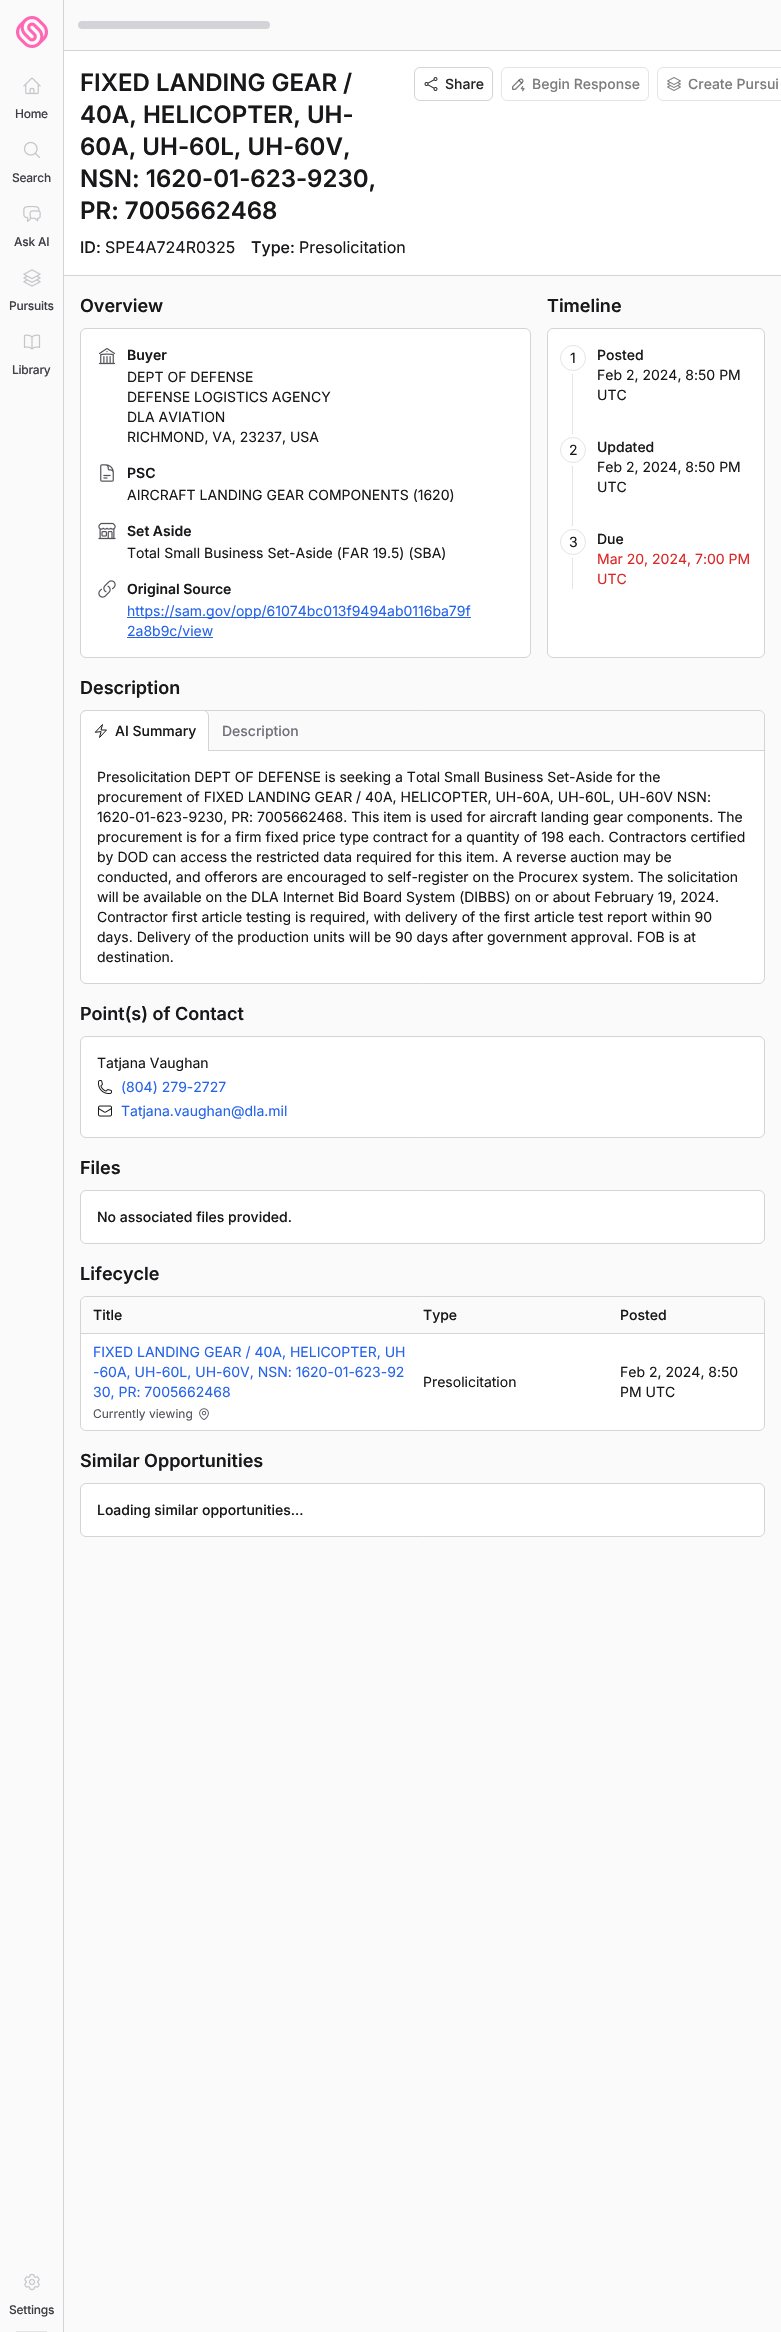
#include "include/core/SkBlurTypes.h"
#include "include/core/SkCanvas.h"
#include "include/core/SkData.h"
#include "include/core/SkFont.h"
#include "include/core/SkFontMgr.h"
#include "include/core/SkImage.h"
#include "include/core/SkMaskFilter.h"
#include "include/core/SkPaint.h"
#include "include/core/SkPathBuilder.h"
#include "include/core/SkTextBlob.h"
#include "include/effects/SkDashPathEffect.h"
#include "include/effects/SkGradientShader.h"
#include "include/utils/SkParsePath.h"

extern sk_sp<SkFontMgr> fontMgr;

void draw(SkCanvas* canvas) {
    SkPaint p;
    p.setAntiAlias(true);
    auto font = [&](const char* family, int weight, float size, bool italic = false) {
        SkFontStyle style(weight, SkFontStyle::kNormal_Width,
            italic ? SkFontStyle::kItalic_Slant : SkFontStyle::kUpright_Slant);
        SkFont result(fontMgr->matchFamilyStyle(family, style), size);
        result.setSubpixel(true);
        return result;
    };
    auto drawTracked = [&](const char* s, float x, float y, const SkFont& font, const SkPaint& ink, float letter, float word) {
        std::vector<SkGlyphID> glyphs(font.countText(s, strlen(s), SkTextEncoding::kUTF8));
        std::vector<float> xs(glyphs.size());
        font.textToGlyphs(s, strlen(s), SkTextEncoding::kUTF8, glyphs);
        font.getXPos(glyphs, xs, x);
        float extra = 0;
        for (size_t i = 0; i < glyphs.size(); i++) {
            xs[i] += extra;
            extra += letter + word * (glyphs[i] == font.unicharToGlyph(' '));
        }
        canvas->drawTextBlob(SkTextBlob::MakeFromPosHGlyphs(glyphs, xs, y, font), 0, 0, ink);
    };
    auto drawPhoto = [&](const char* path, float l, float t, float r, float b) {
        auto image = SkImages::DeferredFromEncodedData(SkData::MakeFromFileName(path));
        canvas->drawImageRect(image, SkRect::MakeLTRB(l, t, r, b), SkSamplingOptions());
    };
    canvas->clear(0xFFFAFAFA);
    p.setColor(0xFFD4D4D8);
    canvas->drawRect(SkRect::MakeLTRB(63, 0, 64, 2332), p);
    drawPhoto("media/1.png", 16, 16, 48, 48);
    drawPhoto("media/2.png", 23, 77, 41, 95);
    auto font1 = font("Inter", 500, 12);
    p.setColor(0xFF3F3F46);
    drawTracked("Home", 15, 118, font1, p, -0.25f, 0);
    drawPhoto("media/3.png", 23, 141, 40, 158);
    drawTracked("Search", 12, 182, font1, p, -0.25f, 0);
    drawPhoto("media/4.png", 23, 206, 41, 222);
    drawTracked("Ask AI", 14, 246, font1, p, -0.25f, 0);
    drawPhoto("media/5.png", 23, 269, 41, 287);
    drawTracked("Pursuits", 9, 310, font1, p, -0.25f, 0);
    drawPhoto("media/6.png", 23, 334, 41, 350);
    drawTracked("Library", 12, 374, font1, p, -0.25f, 0);
    drawPhoto("media/7.png", 24, 2273, 40, 2291);
    drawTracked("Settings", 9, 2314, font1, p, -0.25f, 0);
    p.setColor(0xFFE4E4E7);
    canvas->drawRect(SkRect::MakeLTRB(16, 2331, 47, 2332), p);
    p.setColor(0xFFD4D4D8);
    canvas->drawRoundRect(SkRect::MakeLTRB(78, 21, 270, 29), 4, 4, p);
    {
        const struct { float l, t, r, b; SkColor color; } items[] = {
            {64, 50, 781, 51, 0xFFD4D4D8},
            {64, 51, 781, 275, 0xFFFFFFFF},
            {64, 275, 781, 276, 0xFFD4D4D8},
        };
        for (auto [l, t, r, b, color] : items) {
            p.setColor(color);
            canvas->drawRect(SkRect::MakeLTRB(l, t, r, b), p);
        }
    }
    auto font2 = font("Inter", 600, 24);
    p.setColor(0xFF18181B);
    {
        const struct { const char* s; float x, y; } items[] = {
            {"FIXED LANDING GEAR /", 80, 91},
            {"40A, HELICOPTER, UH-", 80, 123},
            {"60A, UH-60L, UH-60V,", 80, 155},
            {"NSN: 1620-01-623-9230,", 80, 187},
            {"PR: 7005662468", 80, 219},
        };
        for (auto [s, x, y] : items) {
            canvas->drawString(s, x, y, font2, p);
        }
    }
    auto font3 = font("Inter", 500, 16);
    canvas->drawString("ID:", 80, 253, font3, p);
    auto font4 = font("Inter", 400, 16);
    canvas->drawString("SPE4A724R0325", 105, 253, font4, p);
    canvas->drawString("Type:", 251, 253, font3, p);
    canvas->drawString("Presolicitation", 299, 253, font4, p);
    p.setStyle(SkPaint::kStroke_Style);
    p.setStrokeWidth(1);
    p.setColor(0xFFD4D4D8);
    canvas->drawRoundRect(SkRect::MakeLTRB(414.5f, 67.5f, 492.5f, 100.5f), 5.5f, 5.5f, p);
    drawPhoto("media/8.png", 424, 77, 438, 91);
    auto font5 = font("Inter", 500, 14);
    p.setStyle(SkPaint::kFill_Style);
    p.setColor(0xFF27272A);
    canvas->drawString("Share", 445, 89, font5, p);
    p.setStyle(SkPaint::kStroke_Style);
    p.setColor(0xFFE5E5E8);
    canvas->drawRoundRect(SkRect::MakeLTRB(501.5f, 67.5f, 648.5f, 100.5f), 5.5f, 5.5f, p);
    drawPhoto("media/9.png", 512, 78, 525, 92);
    p.setStyle(SkPaint::kFill_Style);
    p.setColor(0xFF7D7D7F);
    canvas->drawString("Begin Response", 532, 89, font5, p);
    p.setStyle(SkPaint::kStroke_Style);
    p.setColor(0xFFE5E5E8);
    canvas->drawRoundRect(SkRect::MakeLTRB(657.5f, 67.5f, 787.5f, 100.5f), 5.5f, 5.5f, p);
    drawPhoto("media/10.png", 667, 77, 681, 91);
    p.setStyle(SkPaint::kFill_Style);
    p.setColor(0xFF7D7D7F);
    canvas->drawString("Create Pursui", 688, 89, font5, p);
    auto font6 = font("Inter", 600, 18);
    p.setColor(0xFF18181B);
    canvas->drawString("Overview", 80, 312, font6, p);
    p.setColor(0xFFFFFFFF);
    canvas->drawRoundRect(SkRect::MakeLTRB(80.5f, 328.5f, 530.5f, 657.5f), 5.5f, 5.5f, p);
    p.setStyle(SkPaint::kStroke_Style);
    p.setColor(0xFFD4D4D8);
    canvas->drawRoundRect(SkRect::MakeLTRB(80.5f, 328.5f, 530.5f, 657.5f), 5.5f, 5.5f, p);
    drawPhoto("media/11.png", 98, 348, 116, 365);
    auto font7 = font("Inter", 600, 14);
    p.setStyle(SkPaint::kFill_Style);
    p.setColor(0xFF18181B);
    canvas->drawString("Buyer", 127, 360, font7, p);
    auto font8 = font("Inter", 400, 14);
    {
        const struct { const char* s; float x, y; } items[] = {
            {"DEPT OF DEFENSE", 127, 382},
            {"DEFENSE LOGISTICS AGENCY", 127, 402},
            {"DLA AVIATION", 127, 422},
            {"RICHMOND, VA, 23237, USA", 127, 442},
        };
        for (auto [s, x, y] : items) {
            canvas->drawString(s, x, y, font8, p);
        }
    }
    drawPhoto("media/12.png", 100, 464, 114, 482);
    canvas->drawString("PSC", 127, 478, font7, p);
    canvas->drawString("AIRCRAFT LANDING GEAR COMPONENTS (1620)", 127, 500, font8, p);
    drawPhoto("media/13.png", 98, 522, 116, 540);
    canvas->drawString("Set Aside", 127, 536, font7, p);
    canvas->drawString("Total Small Business Set-Aside (FAR 19.5) (SBA)", 127, 558, font8, p);
    drawPhoto("media/14.png", 98, 580, 116, 598);
    canvas->drawString("Original Source", 127, 594, font7, p);
    p.setColor(0xFF2563EB);
    canvas->drawRect(SkRect::MakeLTRB(127, 617, 471, 618), p);
    canvas->drawString("https://sam.gov/opp/61074bc013f9494ab0116ba79f", 127, 616, font8, p);
    canvas->drawRect(SkRect::MakeLTRB(127, 637, 213, 638), p);
    canvas->drawString("2a8b9c/view", 127, 636, font8, p);
    p.setColor(0xFF18181B);
    canvas->drawString("Timeline", 547, 312, font6, p);
    p.setColor(0xFFFFFFFF);
    canvas->drawRoundRect(SkRect::MakeLTRB(547.5f, 328.5f, 764.5f, 657.5f), 5.5f, 5.5f, p);
    p.setStyle(SkPaint::kStroke_Style);
    p.setColor(0xFFD4D4D8);
    canvas->drawRoundRect(SkRect::MakeLTRB(547.5f, 328.5f, 764.5f, 657.5f), 5.5f, 5.5f, p);
    p.setStyle(SkPaint::kFill_Style);
    p.setColor(0xFFE4E4E7);
    canvas->drawRect(SkRect::MakeLTRB(572, 345, 573, 589), p);
    p.setStyle(SkPaint::kStroke_Style);
    p.setStrokeWidth(3);
    p.setColor(0xFFFFFFFF);
    canvas->drawCircle(573, 358, 14.5f, p);
    p.setStyle(SkPaint::kFill_Style);
    canvas->drawCircle(573, 358, 12.5f, p);
    p.setStyle(SkPaint::kStroke_Style);
    p.setStrokeWidth(1);
    p.setColor(0xFFE4E4E7);
    canvas->drawCircle(573, 358, 12.5f, p);
    p.setStyle(SkPaint::kFill_Style);
    p.setColor(0xFF18181B);
    canvas->drawString("1", 570, 363, font8, p);
    canvas->drawString("Posted", 597, 360, font5, p);
    canvas->drawString("Feb 2, 2024, 8:50 PM", 597, 380, font8, p);
    canvas->drawString("UTC", 597, 400, font8, p);
    p.setStyle(SkPaint::kStroke_Style);
    p.setStrokeWidth(3);
    p.setColor(0xFFFFFFFF);
    canvas->drawCircle(573, 450, 14.5f, p);
    p.setStyle(SkPaint::kFill_Style);
    canvas->drawCircle(573, 450, 12.5f, p);
    p.setStyle(SkPaint::kStroke_Style);
    p.setStrokeWidth(1);
    p.setColor(0xFFE4E4E7);
    canvas->drawCircle(573, 450, 12.5f, p);
    p.setStyle(SkPaint::kFill_Style);
    p.setColor(0xFF18181B);
    canvas->drawString("2", 569, 455, font8, p);
    canvas->drawString("Updated", 597, 452, font5, p);
    canvas->drawString("Feb 2, 2024, 8:50 PM", 597, 472, font8, p);
    canvas->drawString("UTC", 597, 492, font8, p);
    p.setStyle(SkPaint::kStroke_Style);
    p.setStrokeWidth(3);
    p.setColor(0xFFFFFFFF);
    canvas->drawCircle(573, 542, 14.5f, p);
    p.setStyle(SkPaint::kFill_Style);
    canvas->drawCircle(573, 542, 12.5f, p);
    p.setStyle(SkPaint::kStroke_Style);
    p.setStrokeWidth(1);
    p.setColor(0xFFE4E4E7);
    canvas->drawCircle(573, 542, 12.5f, p);
    p.setStyle(SkPaint::kFill_Style);
    p.setColor(0xFF18181B);
    canvas->drawString("3", 569, 547, font8, p);
    canvas->drawString("Due", 597, 544, font5, p);
    p.setColor(0xFFDC2626);
    canvas->drawString("Mar 20, 2024, 7:00 PM", 597, 564, font8, p);
    canvas->drawString("UTC", 597, 584, font8, p);
    p.setColor(0xFF18181B);
    canvas->drawString("Description", 80, 694, font6, p);
    p.setColor(0xFFFFFFFF);
    canvas->drawRoundRect(SkRect::MakeLTRB(80.5f, 710.5f, 764.5f, 983.5f), 5.5f, 5.5f, p);
    p.setStyle(SkPaint::kStroke_Style);
    p.setColor(0xFFD4D4D8);
    canvas->drawRoundRect(SkRect::MakeLTRB(80.5f, 710.5f, 764.5f, 983.5f), 5.5f, 5.5f, p);
    p.setStyle(SkPaint::kFill_Style);
    p.setColor(0xFFFAFAFA);
    canvas->drawPath(SkPathBuilder().moveTo(87, 711).lineTo(758, 711).cubicTo(761.5f, 711, 764, 713.5f, 764, 717).lineTo(764, 750).lineTo(81, 750).lineTo(81, 717).cubicTo(81, 713.5f, 83.5f, 711, 87, 711).close().detach(), p);
    p.setColor(0xFFD4D4D8);
    canvas->drawRect(SkRect::MakeLTRB(209, 750, 764, 751), p);
    p.setColor(0xFFFFFFFF);
    canvas->drawPath(SkPathBuilder().moveTo(87, 711).lineTo(203, 711).cubicTo(206, 711, 208, 713, 208, 716).lineTo(208, 751).lineTo(81, 751).lineTo(81, 716).cubicTo(81, 713, 84, 711, 87, 711).close().detach(), p);
    canvas->save();
    canvas->clipRect(SkRect::MakeLTRB(81, 711, 764, 751));
    p.setColor(0xFFD4D4D8);
    canvas->drawPath(SkPathBuilder(SkPathFillType::kEvenOdd).moveTo(87, 710).lineTo(203, 710).cubicTo(206, 710, 209, 713, 209, 716).lineTo(209, 751).lineTo(81, 751).lineTo(81, 716).cubicTo(81, 713, 84, 710, 87, 710).close().moveTo(87, 711).lineTo(203, 711).cubicTo(206, 711, 208, 713, 208, 716).lineTo(208, 751).lineTo(81, 751).lineTo(81, 716).cubicTo(81, 713, 84, 711, 87, 711).close().detach(), p);
    canvas->restore();
    p.setStyle(SkPaint::kStroke_Style);
    p.setStrokeCap(SkPaint::kRound_Cap);
    p.setStrokeJoin(SkPaint::kRound_Join);
    p.setColor(0xFF18181B);
    canvas->drawPath(SkPathBuilder().moveTo(95.5f, 732).lineTo(102.5f, 724.5f).lineTo(101, 730).lineTo(106.5f, 730).lineTo(99.5f, 737.5f).lineTo(101, 732).close().detach(), p);
    p.setStyle(SkPaint::kFill_Style);
    canvas->drawString("AI Summary", 115, 736, font5, p);
    p.setColor(0xFF71717A);
    canvas->drawString("Description", 222, 736, font5, p);
    p.setColor(0xFF18181B);
    {
        const struct { const char* s; float x, y; } items[] = {
            {"Presolicitation DEPT OF DEFENSE is seeking a Total Small Business Set-Aside for the", 97, 782},
            {"procurement of FIXED LANDING GEAR / 40A, HELICOPTER, UH-60A, UH-60L, UH-60V NSN:", 97, 802},
            {"1620-01-623-9230, PR: 7005662468. This item is used for aircraft landing gear components. The", 97, 822},
            {"procurement is for a firm fixed price type contract for a quantity of 198 each. Contractors certified", 97, 842},
            {"by DOD can access the restricted data required for this item. A reverse auction may be", 97, 862},
            {"conducted, and offerors are encouraged to self-register on the Procurex system. The solicitation", 97, 882},
            {"will be available on the DLA Internet Bid Board System (DIBBS) on or about February 19, 2024.", 97, 902},
            {"Contractor first article testing is required, with delivery of the first article test report within 90", 97, 922},
            {"days. Delivery of the production units will be 90 days after government approval. FOB is at", 97, 942},
            {"destination.", 97, 962},
        };
        for (auto [s, x, y] : items) {
            canvas->drawString(s, x, y, font8, p);
        }
    }
    canvas->drawString("Point(s) of Contact", 80, 1020, font6, p);
    p.setColor(0xFFFFFFFF);
    canvas->drawRoundRect(SkRect::MakeLTRB(80.5f, 1036.5f, 764.5f, 1137.5f), 5.5f, 5.5f, p);
    p.setStyle(SkPaint::kStroke_Style);
    p.setStrokeCap(SkPaint::kButt_Cap);
    p.setStrokeJoin(SkPaint::kMiter_Join);
    p.setColor(0xFFD4D4D8);
    canvas->drawRoundRect(SkRect::MakeLTRB(80.5f, 1036.5f, 764.5f, 1137.5f), 5.5f, 5.5f, p);
    p.setStyle(SkPaint::kFill_Style);
    p.setColor(0xFF18181B);
    canvas->drawString("Tatjana Vaughan", 97, 1068, font8, p);
    drawPhoto("media/15.png", 98, 1080, 112, 1094);
    p.setColor(0xFF2563EB);
    canvas->drawString("(804) 279-2727", 121, 1092, font8, p);
    drawPhoto("media/16.png", 98, 1105, 112, 1117);
    canvas->drawString("Tatjana.vaughan@dla.mil", 121, 1116, font8, p);
    p.setColor(0xFF18181B);
    canvas->drawString("Files", 80, 1174, font6, p);
    p.setColor(0xFFFFFFFF);
    canvas->drawRoundRect(SkRect::MakeLTRB(80.5f, 1190.5f, 764.5f, 1243.5f), 5.5f, 5.5f, p);
    p.setStyle(SkPaint::kStroke_Style);
    p.setColor(0xFFD4D4D8);
    canvas->drawRoundRect(SkRect::MakeLTRB(80.5f, 1190.5f, 764.5f, 1243.5f), 5.5f, 5.5f, p);
    p.setStyle(SkPaint::kFill_Style);
    p.setColor(0xFF18181B);
    canvas->drawString("No associated files provided.", 97, 1222, font5, p);
    canvas->drawString("Lifecycle", 80, 1280, font6, p);
    p.setColor(0xFFFFFFFF);
    canvas->drawRoundRect(SkRect::MakeLTRB(80.5f, 1296.5f, 764.5f, 1430.5f), 5.5f, 5.5f, p);
    p.setStyle(SkPaint::kStroke_Style);
    p.setColor(0xFFD4D4D8);
    canvas->drawRoundRect(SkRect::MakeLTRB(80.5f, 1296.5f, 764.5f, 1430.5f), 5.5f, 5.5f, p);
    p.setStyle(SkPaint::kFill_Style);
    p.setColor(0xFFFAFAFA);
    canvas->drawPath(SkPathBuilder().moveTo(87, 1297).lineTo(758, 1297).cubicTo(761.5f, 1297, 764, 1299.5f, 764, 1303).lineTo(764, 1333).lineTo(81, 1333).lineTo(81, 1303).cubicTo(81, 1299.5f, 83.5f, 1297, 87, 1297).close().detach(), p);
    p.setColor(0xFF18181B);
    {
        const struct { const char* s; float x, y; } items[] = {
            {"Title", 93, 1320},
            {"Type", 423, 1320},
            {"Posted", 620, 1320},
        };
        for (auto [s, x, y] : items) {
            canvas->drawString(s, x, y, font5, p);
        }
    }
    p.setColor(0xFFD4D4D8);
    canvas->drawRect(SkRect::MakeLTRB(81, 1333, 764, 1334), p);
    p.setColor(0xFFFFFFFF);
    canvas->drawPath(SkPathBuilder().moveTo(81, 1334).lineTo(764, 1334).lineTo(764, 1424).cubicTo(764, 1427.5f, 761.5f, 1430, 758, 1430).lineTo(87, 1430).cubicTo(83.5f, 1430, 81, 1427.5f, 81, 1424).close().detach(), p);
    p.setColor(0xFF2563EB);
    {
        const struct { const char* s; float x, y; } items[] = {
            {"FIXED LANDING GEAR / 40A, HELICOPTER, UH", 93, 1357},
            {"-60A, UH-60L, UH-60V, NSN: 1620-01-623-92", 93, 1377},
            {"30, PR: 7005662468", 93, 1397},
        };
        for (auto [s, x, y] : items) {
            canvas->drawString(s, x, y, font8, p);
        }
    }
    auto font9 = font("Inter", 400, 12);
    p.setColor(0xFF52525B);
    canvas->drawString("Currently viewing", 93, 1418, font9, p);
    drawPhoto("media/17.png", 199, 1408, 209, 1420);
    p.setColor(0xFF18181B);
    {
        const struct { const char* s; float x, y; } items[] = {
            {"Presolicitation", 423, 1387},
            {"Feb 2, 2024, 8:50", 620, 1377},
            {"PM UTC", 620, 1397},
        };
        for (auto [s, x, y] : items) {
            canvas->drawString(s, x, y, font8, p);
        }
    }
    canvas->drawString("Similar Opportunities", 80, 1467, font6, p);
    p.setColor(0xFFFFFFFF);
    canvas->drawRoundRect(SkRect::MakeLTRB(80.5f, 1483.5f, 764.5f, 1536.5f), 5.5f, 5.5f, p);
    p.setStyle(SkPaint::kStroke_Style);
    p.setColor(0xFFD4D4D8);
    canvas->drawRoundRect(SkRect::MakeLTRB(80.5f, 1483.5f, 764.5f, 1536.5f), 5.5f, 5.5f, p);
    p.setStyle(SkPaint::kFill_Style);
    p.setColor(0xFF18181B);
    canvas->drawString("Loading similar opportunities...", 97, 1515, font5, p);
}
